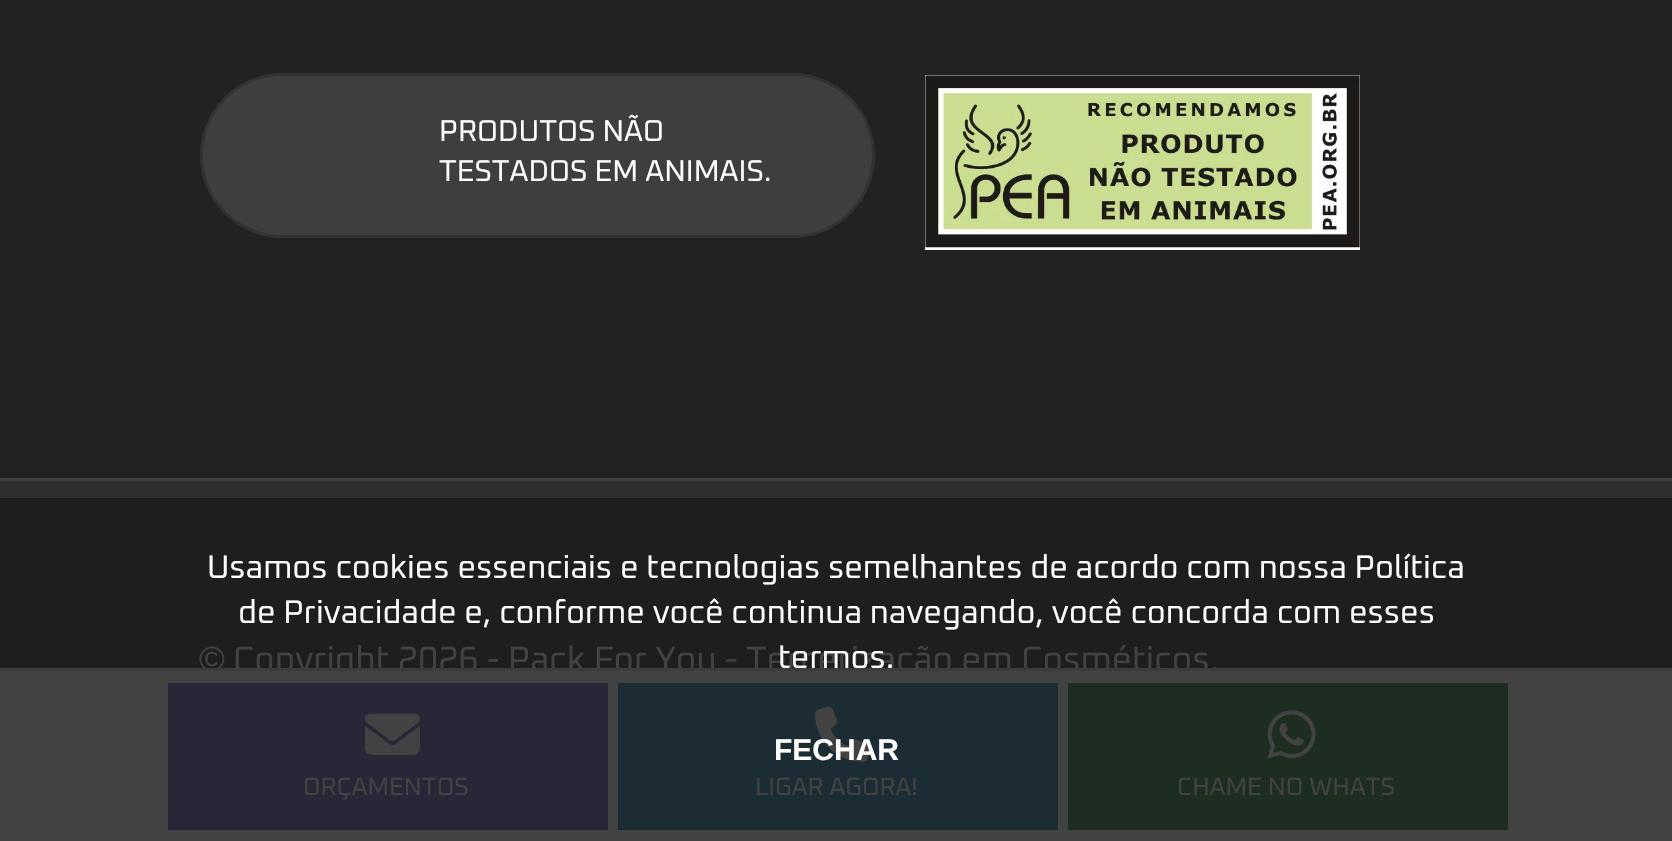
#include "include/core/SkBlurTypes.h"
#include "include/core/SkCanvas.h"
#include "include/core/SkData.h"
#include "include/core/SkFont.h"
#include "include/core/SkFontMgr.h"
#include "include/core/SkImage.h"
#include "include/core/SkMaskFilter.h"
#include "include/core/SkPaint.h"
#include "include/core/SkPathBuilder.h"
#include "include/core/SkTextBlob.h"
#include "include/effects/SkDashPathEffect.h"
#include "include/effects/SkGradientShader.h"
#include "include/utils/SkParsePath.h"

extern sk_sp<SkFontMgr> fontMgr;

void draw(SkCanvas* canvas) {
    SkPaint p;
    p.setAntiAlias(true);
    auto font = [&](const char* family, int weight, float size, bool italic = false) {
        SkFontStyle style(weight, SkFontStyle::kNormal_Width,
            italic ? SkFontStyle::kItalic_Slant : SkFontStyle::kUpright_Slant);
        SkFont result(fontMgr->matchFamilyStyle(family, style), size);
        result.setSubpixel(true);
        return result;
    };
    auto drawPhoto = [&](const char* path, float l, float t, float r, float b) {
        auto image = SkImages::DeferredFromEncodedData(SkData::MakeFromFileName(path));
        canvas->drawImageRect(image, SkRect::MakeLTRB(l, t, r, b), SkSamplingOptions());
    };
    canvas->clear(0xFF222222);
    p.setColor(0xFF3E3E3E);
    canvas->drawRoundRect(SkRect::MakeLTRB(201.5f, 74.5f, 873.5f, 236.5f), 81, 81, p);
    p.setStyle(SkPaint::kStroke_Style);
    p.setStrokeWidth(3);
    p.setColor(0xFF323232);
    canvas->drawRoundRect(SkRect::MakeLTRB(201.5f, 74.5f, 873.5f, 236.5f), 81, 81, p);
    auto font1 = font("Oxanium", 400, 30);
    p.setStyle(SkPaint::kFill_Style);
    p.setColor(0xFFFFFFFF);
    canvas->drawString("PRODUTOS NÃO", 439, 141, font1, p);
    canvas->drawString("TESTADOS EM ANIMAIS.", 439, 181, font1, p);
    canvas->drawRect(SkRect::MakeLTRB(925, 247, 1360, 250), p);
    drawPhoto("media/1.png", 925, 75, 1360, 248);
    {
        const struct { float l, t, r, b; SkColor color; } items[] = {
            {0, 481, 1672, 498, 0xFF2F2F2F},
            {0, 498, 1672, 668, 0xFF1E1E1E},
            {0, 478, 1672, 481, 0xFF404040},
        };
        for (auto [l, t, r, b, color] : items) {
            p.setColor(color);
            canvas->drawRect(SkRect::MakeLTRB(l, t, r, b), p);
        }
    }
    auto font2 = font("Liberation Sans", 400, 35);
    p.setColor(0xFF424242);
    canvas->drawString("©", 199, 671, font2, p);
    auto font3 = font("Oxanium", 400, 35);
    canvas->drawString("Copyright 2026 - Pack For You - Tercerização em Cosméticos.", 233, 671, font3, p);
    {
        const struct { float l, t, r, b; SkColor color; } items[] = {
            {0, 671, 1672, 841, 0xFF424242},
            {0, 668, 1672, 671, 0xFF3C3C3C},
            {168, 683, 608, 830, 0xFF2A2537},
        };
        for (auto [l, t, r, b, color] : items) {
            p.setColor(color);
            canvas->drawRect(SkRect::MakeLTRB(l, t, r, b), p);
        }
    }
    drawPhoto("media/2.png", 365, 713, 420, 755);
    auto font4 = font("Oxanium", 400, 25);
    p.setColor(0xFF424242);
    canvas->drawString("ORÇAMENTOS", 303, 795, font4, p);
    p.setColor(0xFF1C2C35);
    canvas->drawRect(SkRect::MakeLTRB(618, 683, 1058, 830), p);
    drawPhoto("media/3.png", 815, 706, 870, 762);
    p.setColor(0xFF424242);
    canvas->drawString("LIGAR AGORA!", 755, 795, font4, p);
    p.setColor(0xFF1D2D22);
    canvas->drawRect(SkRect::MakeLTRB(1068, 683, 1508, 830), p);
    drawPhoto("media/4.png", 1267, 710, 1316, 759);
    p.setColor(0xFF424242);
    canvas->drawString("CHAME NO WHATS", 1177, 795, font4, p);
    auto font5 = font("Oxanium", 400, 32.5f);
    p.setColor(0xFFFFFFFF);
    {
        const struct { const char* s; float x, y; } items[] = {
            {"Usamos cookies essenciais e tecnologias semelhantes de acordo com nossa Política", 207, 578},
            {"de Privacidade e, conforme você continua navegando, você concorda com esses", 238, 623},
            {"termos.", 778, 668},
        };
        for (auto [s, x, y] : items) {
            canvas->drawString(s, x, y, font5, p);
        }
    }
    auto font6 = font("Liberation Sans", 700, 30);
    canvas->drawString("FECHAR", 774, 760, font6, p);
}
